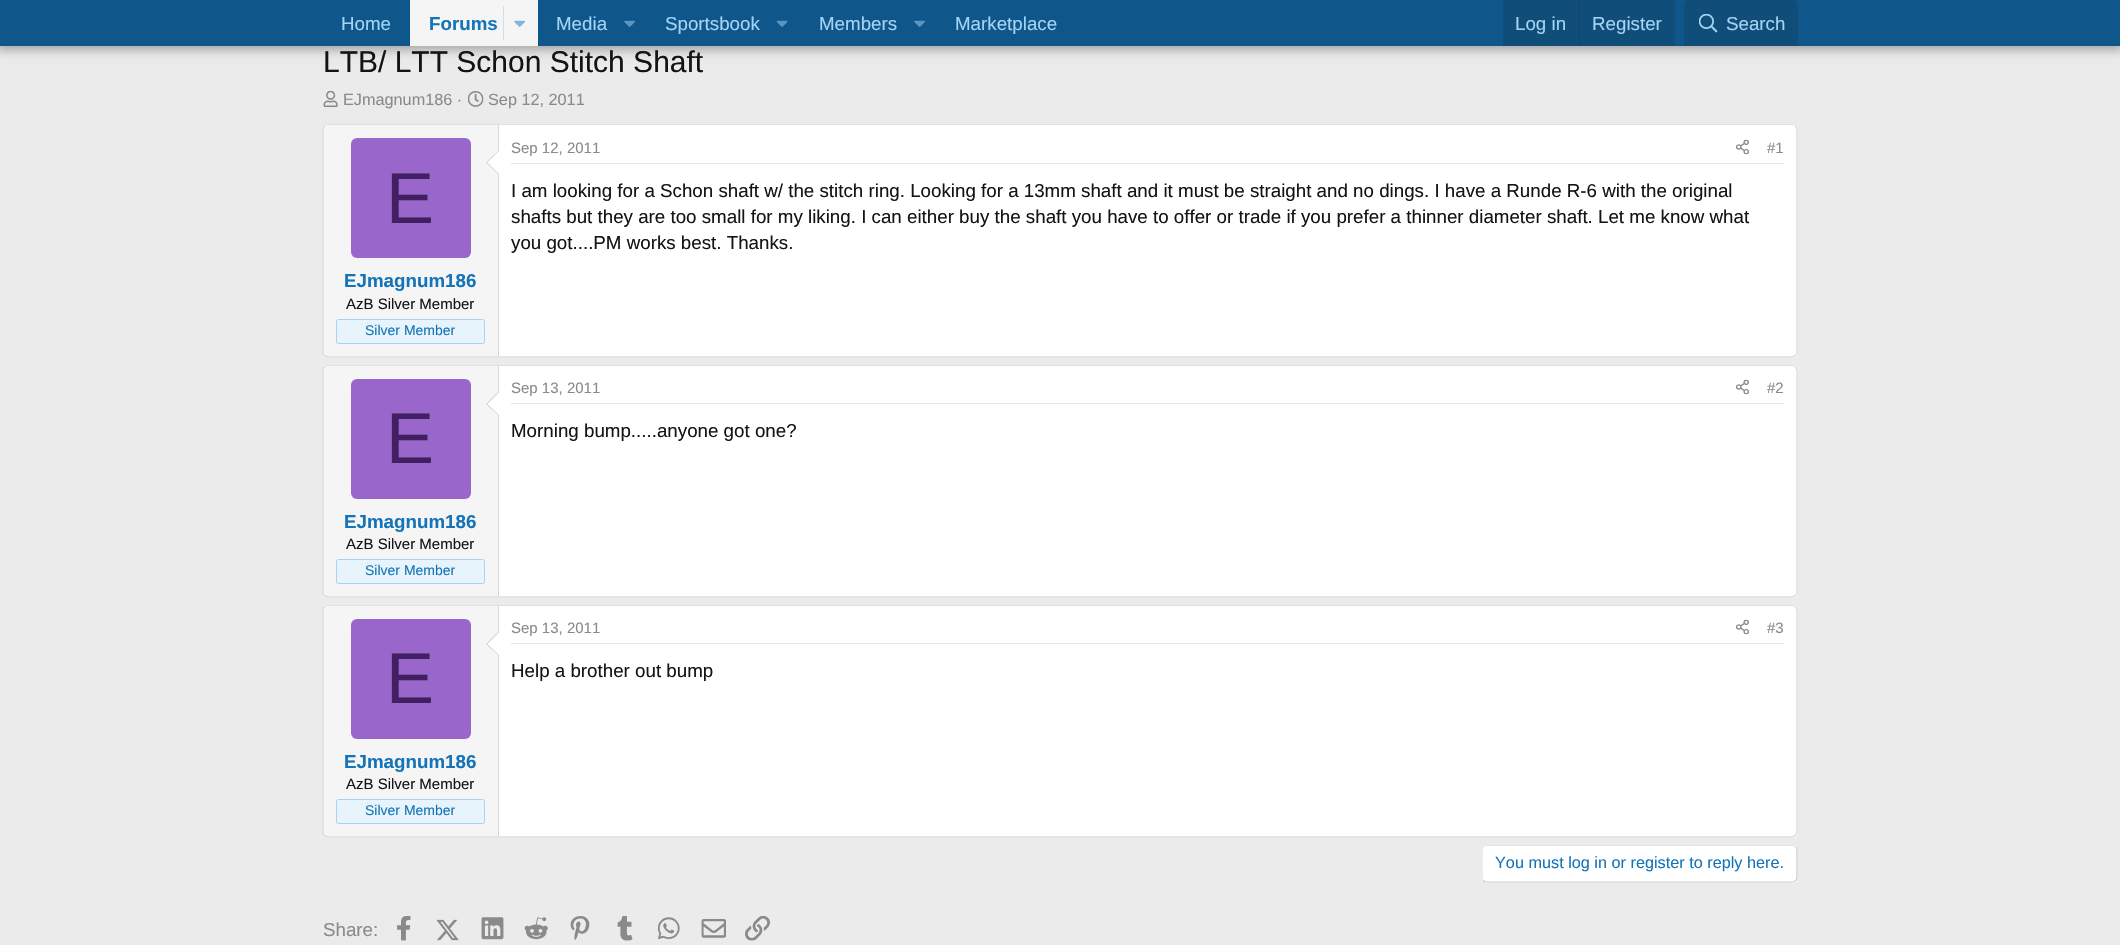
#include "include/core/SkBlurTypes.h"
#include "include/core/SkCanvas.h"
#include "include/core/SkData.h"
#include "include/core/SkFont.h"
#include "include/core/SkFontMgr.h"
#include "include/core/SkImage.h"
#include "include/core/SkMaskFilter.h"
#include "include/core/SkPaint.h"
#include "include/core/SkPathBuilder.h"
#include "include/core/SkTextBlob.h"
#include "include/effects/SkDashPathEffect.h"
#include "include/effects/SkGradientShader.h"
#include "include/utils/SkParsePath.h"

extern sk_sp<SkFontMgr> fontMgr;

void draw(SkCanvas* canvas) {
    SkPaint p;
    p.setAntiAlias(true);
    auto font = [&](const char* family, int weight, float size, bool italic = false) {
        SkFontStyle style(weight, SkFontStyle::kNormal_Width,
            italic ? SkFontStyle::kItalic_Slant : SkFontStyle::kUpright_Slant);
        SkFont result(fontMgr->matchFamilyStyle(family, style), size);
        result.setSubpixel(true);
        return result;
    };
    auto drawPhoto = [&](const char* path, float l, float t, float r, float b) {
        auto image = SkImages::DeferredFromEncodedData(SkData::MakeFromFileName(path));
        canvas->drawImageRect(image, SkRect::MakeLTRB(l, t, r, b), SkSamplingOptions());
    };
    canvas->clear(0xFFEBEBEB);
    p.setColor(0x4D000000);
    p.setMaskFilter(SkMaskFilter::MakeBlur(kNormal_SkBlurStyle, 5));
    canvas->drawRect(SkRect::MakeLTRB(-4, -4, 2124, 50), p);
    p.setMaskFilter(nullptr);
    p.setColor(0xFF0F578A);
    canvas->drawRect(SkRect::MakeLTRB(0, 0, 2120, 46), p);
    auto font1 = font("Liberation Sans", 400, 18.75f);
    p.setColor(0xFFA3D4F5);
    canvas->drawString("Home", 341, 30, font1, p);
    p.setColor(0xFFF5F5F5);
    canvas->drawRect(SkRect::MakeLTRB(410, 0, 538, 46), p);
    auto font2 = font("Liberation Sans", 700, 18.75f);
    p.setColor(0xFF1474B8);
    canvas->drawString("Forums", 429, 30, font2, p);
    p.setColor(0xFFCEDFEB);
    canvas->drawRect(SkRect::MakeLTRB(503, 6, 504, 40), p);
    drawPhoto("media/1.png", 514, 20, 525, 27);
    p.setColor(0xFFA3D4F5);
    canvas->drawString("Media", 556, 30, font1, p);
    drawPhoto("media/2.png", 624, 20, 635, 27);
    canvas->drawString("Sportsbook", 665, 30, font1, p);
    drawPhoto("media/3.png", 776, 20, 788, 27);
    canvas->drawString("Members", 819, 30, font1, p);
    drawPhoto("media/2.png", 914, 20, 925, 27);
    canvas->drawString("Marketplace", 955, 30, font1, p);
    p.setColor(0xFF104D78);
    canvas->drawRect(SkRect::MakeLTRB(1503, 0, 1675, 46), p);
    p.setColor(0xFFA3D4F5);
    canvas->drawString("Log in", 1515, 30, font1, p);
    p.setColor(0xFF114469);
    canvas->drawRect(SkRect::MakeLTRB(1579, 0, 1580, 46), p);
    p.setColor(0xFFA3D4F5);
    canvas->drawString("Register", 1592, 30, font1, p);
    p.setColor(0xFF104D78);
    canvas->drawPath(SkPathBuilder().moveTo(1689, 0).lineTo(1793, 0).cubicTo(1796, 0, 1798, 2, 1798, 5).lineTo(1798, 46).lineTo(1684, 46).lineTo(1684, 5).cubicTo(1684, 2, 1686, 0, 1689, 0).close().detach(), p);
    drawPhoto("media/4.png", 1699, 14, 1718, 33);
    p.setColor(0xFFA3D4F5);
    canvas->drawString("Search", 1726, 30, font1, p);
    auto font3 = font("Liberation Sans", 400, 30);
    p.setColor(0xFF141414);
    canvas->drawString("LTB/ LTT Schon Stitch Shaft", 323, 72, font3, p);
    drawPhoto("media/5.png", 323, 91, 338, 107);
    auto font4 = font("Liberation Sans", 400, 16.25f);
    p.setColor(0xFF8A8A8A);
    canvas->drawString("EJmagnum186 ·", 343, 105, font4, p);
    drawPhoto("media/6.png", 467, 91, 484, 107);
    canvas->drawString("Sep 12, 2011", 488, 105, font4, p);
    p.setColor(0xFFFFFFFF);
    canvas->drawRoundRect(SkRect::MakeLTRB(323, 124, 1798, 358), 5, 5, p);
    p.setStyle(SkPaint::kStroke_Style);
    p.setStrokeWidth(1.2f);
    p.setColor(0xFFE0E0E0);
    canvas->drawPath(SkPathBuilder().moveTo(324.5f, 125.5f).lineTo(327.5f, 124.5f).lineTo(1792.5f, 124.5f).lineTo(1795.5f, 125.5f).detach(), p);
    p.setColor(0xFFD6D6D6);
    canvas->drawPath(SkPathBuilder().moveTo(1795.5f, 125.5f).lineTo(1797, 129).lineTo(1797, 353).lineTo(1795.5f, 355.5f).detach(), p);
    p.setColor(0xFFCCCCCC);
    canvas->drawPath(SkPathBuilder().moveTo(1795.5f, 355.5f).lineTo(1792.5f, 357).lineTo(327.5f, 357).lineTo(324.5f, 355.5f).detach(), p);
    p.setColor(0xFFD6D6D6);
    canvas->drawPath(SkPathBuilder().moveTo(324.5f, 355.5f).lineTo(323, 353).lineTo(323, 166).lineTo(323, 129).lineTo(324.5f, 125.5f).detach(), p);
    p.setStyle(SkPaint::kFill_Style);
    p.setColor(0xFFF5F5F5);
    canvas->drawPath(SkPathBuilder().moveTo(328, 125).lineTo(499, 125).lineTo(499, 356).lineTo(328, 356).cubicTo(326, 356, 324, 354, 324, 352).lineTo(324, 129).cubicTo(324, 127, 326, 125, 328, 125).close().detach(), p);
    p.setColor(0xFFD6D6D6);
    canvas->drawRect(SkRect::MakeLTRB(498, 125, 499, 356), p);
    canvas->drawPath(SkPathBuilder().moveTo(499, 150).lineTo(499, 175).lineTo(486, 162.5f).close().detach(), p);
    p.setColor(0xFFFFFFFF);
    canvas->drawPath(SkPathBuilder().moveTo(499, 151).lineTo(499, 174).lineTo(487.5f, 162.5f).close().detach(), p);
    p.setColor(0xFF9966CC);
    canvas->drawRoundRect(SkRect::MakeLTRB(351, 138, 471, 258), 6, 6, p);
    auto font5 = font("Liberation Sans", 400, 72);
    p.setColor(0xFF402060);
    canvas->drawString("E", 386, 223, font5, p);
    p.setColor(0xFF1474B8);
    canvas->drawString("EJmagnum186", 344, 287, font2, p);
    auto font6 = font("Liberation Sans", 400, 15);
    p.setColor(0xFF141414);
    canvas->drawString("AzB Silver Member", 346, 309, font6, p);
    p.setColor(0xFFE8F4FC);
    canvas->drawRoundRect(SkRect::MakeLTRB(336.5f, 319.5f, 484.5f, 343.5f), 2, 2, p);
    p.setStyle(SkPaint::kStroke_Style);
    p.setStrokeWidth(1);
    p.setColor(0xFFA3D4F5);
    canvas->drawRoundRect(SkRect::MakeLTRB(336.5f, 319.5f, 484.5f, 343.5f), 2, 2, p);
    auto font7 = font("Liberation Sans", 400, 14);
    p.setStyle(SkPaint::kFill_Style);
    p.setColor(0xFF1474B8);
    canvas->drawString("Silver Member", 365, 335, font7, p);
    p.setColor(0xFFE5E5E5);
    canvas->drawRect(SkRect::MakeLTRB(511, 163, 1784, 164), p);
    p.setColor(0xFF8A8A8A);
    canvas->drawString("Sep 12, 2011", 511, 153, font6, p);
    drawPhoto("media/7.png", 1736, 139, 1749, 155);
    canvas->drawString("#1", 1767, 153, font6, p);
    p.setColor(0xFF141414);
    {
        const struct { const char* s; float x, y; } items[] = {
            {"I am looking for a Schon shaft w/ the stitch ring. Looking for a 13mm shaft and it must be straight and no dings. I have a Runde R-6 with the original", 511, 197},
            {"shafts but they are too small for my liking. I can either buy the shaft you have to offer or trade if you prefer a thinner diameter shaft. Let me know what", 511, 223},
            {"you got....PM works best. Thanks.", 511, 249},
        };
        for (auto [s, x, y] : items) {
            canvas->drawString(s, x, y, font1, p);
        }
    }
    p.setColor(0xFFFFFFFF);
    canvas->drawRoundRect(SkRect::MakeLTRB(323, 365, 1798, 598), 5, 5, p);
    p.setStyle(SkPaint::kStroke_Style);
    p.setStrokeWidth(1.2f);
    p.setColor(0xFFE0E0E0);
    canvas->drawPath(SkPathBuilder().moveTo(324.5f, 367).lineTo(327.5f, 365.5f).lineTo(1792.5f, 365.5f).lineTo(1795.5f, 367).detach(), p);
    p.setColor(0xFFD6D6D6);
    canvas->drawPath(SkPathBuilder().moveTo(1795.5f, 367).lineTo(1797, 370).lineTo(1797, 593).lineTo(1795.5f, 595.5f).detach(), p);
    p.setColor(0xFFCCCCCC);
    canvas->drawPath(SkPathBuilder().moveTo(1795.5f, 595.5f).lineTo(1792.5f, 597).lineTo(327.5f, 597).lineTo(324.5f, 595.5f).detach(), p);
    p.setColor(0xFFD6D6D6);
    canvas->drawPath(SkPathBuilder().moveTo(324.5f, 595.5f).lineTo(323, 593).lineTo(323, 407).lineTo(323, 370).lineTo(324.5f, 367).detach(), p);
    p.setStyle(SkPaint::kFill_Style);
    p.setColor(0xFFF5F5F5);
    canvas->drawPath(SkPathBuilder().moveTo(328, 366).lineTo(499, 366).lineTo(499, 596).lineTo(328, 596).cubicTo(326, 596, 324, 594, 324, 592).lineTo(324, 370).cubicTo(324, 368, 326, 366, 328, 366).close().detach(), p);
    p.setColor(0xFFD6D6D6);
    canvas->drawRect(SkRect::MakeLTRB(498, 366, 499, 596), p);
    canvas->drawPath(SkPathBuilder().moveTo(499, 391).lineTo(499, 416).lineTo(486, 404).close().detach(), p);
    p.setColor(0xFFFFFFFF);
    canvas->drawPath(SkPathBuilder().moveTo(499, 392.5f).lineTo(499, 415).lineTo(487.5f, 404).close().detach(), p);
    p.setColor(0xFF9966CC);
    canvas->drawRoundRect(SkRect::MakeLTRB(351, 379, 471, 499), 6, 6, p);
    p.setColor(0xFF402060);
    canvas->drawString("E", 386, 463, font5, p);
    p.setColor(0xFF1474B8);
    canvas->drawString("EJmagnum186", 344, 528, font2, p);
    p.setColor(0xFF141414);
    canvas->drawString("AzB Silver Member", 346, 549, font6, p);
    p.setColor(0xFFE8F4FC);
    canvas->drawRoundRect(SkRect::MakeLTRB(336.5f, 559.5f, 484.5f, 583.5f), 2, 2, p);
    p.setStyle(SkPaint::kStroke_Style);
    p.setStrokeWidth(1);
    p.setColor(0xFFA3D4F5);
    canvas->drawRoundRect(SkRect::MakeLTRB(336.5f, 559.5f, 484.5f, 583.5f), 2, 2, p);
    p.setStyle(SkPaint::kFill_Style);
    p.setColor(0xFF1474B8);
    canvas->drawString("Silver Member", 365, 575, font7, p);
    p.setColor(0xFFE5E5E5);
    canvas->drawRect(SkRect::MakeLTRB(511, 403, 1784, 404), p);
    p.setColor(0xFF8A8A8A);
    canvas->drawString("Sep 13, 2011", 511, 393, font6, p);
    drawPhoto("media/7.png", 1736, 379, 1749, 395);
    canvas->drawString("#2", 1767, 393, font6, p);
    p.setColor(0xFF141414);
    canvas->drawString("Morning bump.....anyone got one?", 511, 437, font1, p);
    p.setColor(0xFFFFFFFF);
    canvas->drawRoundRect(SkRect::MakeLTRB(323, 605, 1798, 838), 5, 5, p);
    p.setStyle(SkPaint::kStroke_Style);
    p.setStrokeWidth(1.2f);
    p.setColor(0xFFE0E0E0);
    canvas->drawPath(SkPathBuilder().moveTo(324.5f, 607).lineTo(327.5f, 605.5f).lineTo(1792.5f, 605.5f).lineTo(1795.5f, 607).detach(), p);
    p.setColor(0xFFD6D6D6);
    canvas->drawPath(SkPathBuilder().moveTo(1795.5f, 607).lineTo(1797, 609.5f).lineTo(1797, 795.5f).lineTo(1797, 832.5f).lineTo(1795.5f, 835.5f).detach(), p);
    p.setColor(0xFFCCCCCC);
    canvas->drawPath(SkPathBuilder().moveTo(1795.5f, 835.5f).lineTo(1792.5f, 837).lineTo(327.5f, 837).lineTo(324.5f, 835.5f).detach(), p);
    p.setColor(0xFFD6D6D6);
    canvas->drawPath(SkPathBuilder().moveTo(324.5f, 835.5f).lineTo(323, 832.5f).lineTo(323, 609.5f).lineTo(324.5f, 607).detach(), p);
    p.setStyle(SkPaint::kFill_Style);
    p.setColor(0xFFF5F5F5);
    canvas->drawPath(SkPathBuilder().moveTo(328, 606).lineTo(499, 606).lineTo(499, 836).lineTo(328, 836).cubicTo(326, 836, 324, 834, 324, 832).lineTo(324, 610).cubicTo(324, 608, 326, 606, 328, 606).close().detach(), p);
    p.setColor(0xFFD6D6D6);
    canvas->drawRect(SkRect::MakeLTRB(498, 606, 499, 836), p);
    canvas->drawPath(SkPathBuilder().moveTo(499, 631).lineTo(499, 656).lineTo(486, 644).close().detach(), p);
    p.setColor(0xFFFFFFFF);
    canvas->drawPath(SkPathBuilder().moveTo(499, 632.5f).lineTo(499, 655).lineTo(487.5f, 644).close().detach(), p);
    p.setColor(0xFF9966CC);
    canvas->drawRoundRect(SkRect::MakeLTRB(351, 619, 471, 739), 6, 6, p);
    p.setColor(0xFF402060);
    canvas->drawString("E", 386, 703, font5, p);
    p.setColor(0xFF1474B8);
    canvas->drawString("EJmagnum186", 344, 768, font2, p);
    p.setColor(0xFF141414);
    canvas->drawString("AzB Silver Member", 346, 789, font6, p);
    p.setColor(0xFFE8F4FC);
    canvas->drawRoundRect(SkRect::MakeLTRB(336.5f, 799.5f, 484.5f, 823.5f), 2, 2, p);
    p.setStyle(SkPaint::kStroke_Style);
    p.setStrokeWidth(1);
    p.setColor(0xFFA3D4F5);
    canvas->drawRoundRect(SkRect::MakeLTRB(336.5f, 799.5f, 484.5f, 823.5f), 2, 2, p);
    p.setStyle(SkPaint::kFill_Style);
    p.setColor(0xFF1474B8);
    canvas->drawString("Silver Member", 365, 815, font7, p);
    p.setColor(0xFFE5E5E5);
    canvas->drawRect(SkRect::MakeLTRB(511, 643, 1784, 644), p);
    p.setColor(0xFF8A8A8A);
    canvas->drawString("Sep 13, 2011", 511, 633, font6, p);
    drawPhoto("media/7.png", 1736, 619, 1749, 635);
    canvas->drawString("#3", 1767, 633, font6, p);
    p.setColor(0xFF141414);
    canvas->drawString("Help a brother out bump", 511, 677, font1, p);
    p.setColor(0xFFFFFFFF);
    canvas->drawRoundRect(SkRect::MakeLTRB(1481, 845, 1798, 883), 5, 5, p);
    p.setStyle(SkPaint::kStroke_Style);
    p.setStrokeWidth(1.2f);
    p.setColor(0xFFC9C9C9);
    canvas->drawPath(SkPathBuilder().moveTo(1795.5f, 847).cubicTo(1796.5f, 847.5f, 1797, 849, 1797, 850).lineTo(1797, 877.5f).cubicTo(1797, 878.5f, 1796.5f, 880, 1795.5f, 880.5f).cubicTo(1795, 881.5f, 1793.5f, 882, 1792.5f, 882).lineTo(1486, 882).cubicTo(1485, 882, 1484, 881.5f, 1483, 880.5f).detach(), p);
    p.setColor(0xFFE3E3E3);
    canvas->drawPath(SkPathBuilder().moveTo(1483, 880.5f).cubicTo(1482.5f, 880, 1482, 878.5f, 1482, 877.5f).lineTo(1482, 850).cubicTo(1482, 849, 1482.5f, 847.5f, 1483, 847).cubicTo(1484, 846, 1485, 845.5f, 1486, 845.5f).lineTo(1792.5f, 845.5f).cubicTo(1793.5f, 845.5f, 1795, 846, 1795.5f, 847).detach(), p);
    p.setStyle(SkPaint::kFill_Style);
    p.setColor(0xFF1474B8);
    canvas->drawString("You must log in or register to reply here.", 1495, 868, font4, p);
    p.setColor(0xFF8A8A8A);
    canvas->drawString("Share:", 323, 936, font1, p);
    drawPhoto("media/8.png", 397, 916, 411, 941);
    drawPhoto("media/9.png", 436, 919, 459, 941);
    drawPhoto("media/10.png", 481, 917, 504, 940);
    drawPhoto("media/11.png", 524, 917, 548, 940);
    drawPhoto("media/12.png", 570, 916, 590, 941);
    drawPhoto("media/13.png", 617, 916, 633, 941);
    drawPhoto("media/14.png", 657, 917, 680, 940);
    drawPhoto("media/15.png", 701, 919, 726, 938);
    drawPhoto("media/16.png", 745, 916, 770, 941);
}
